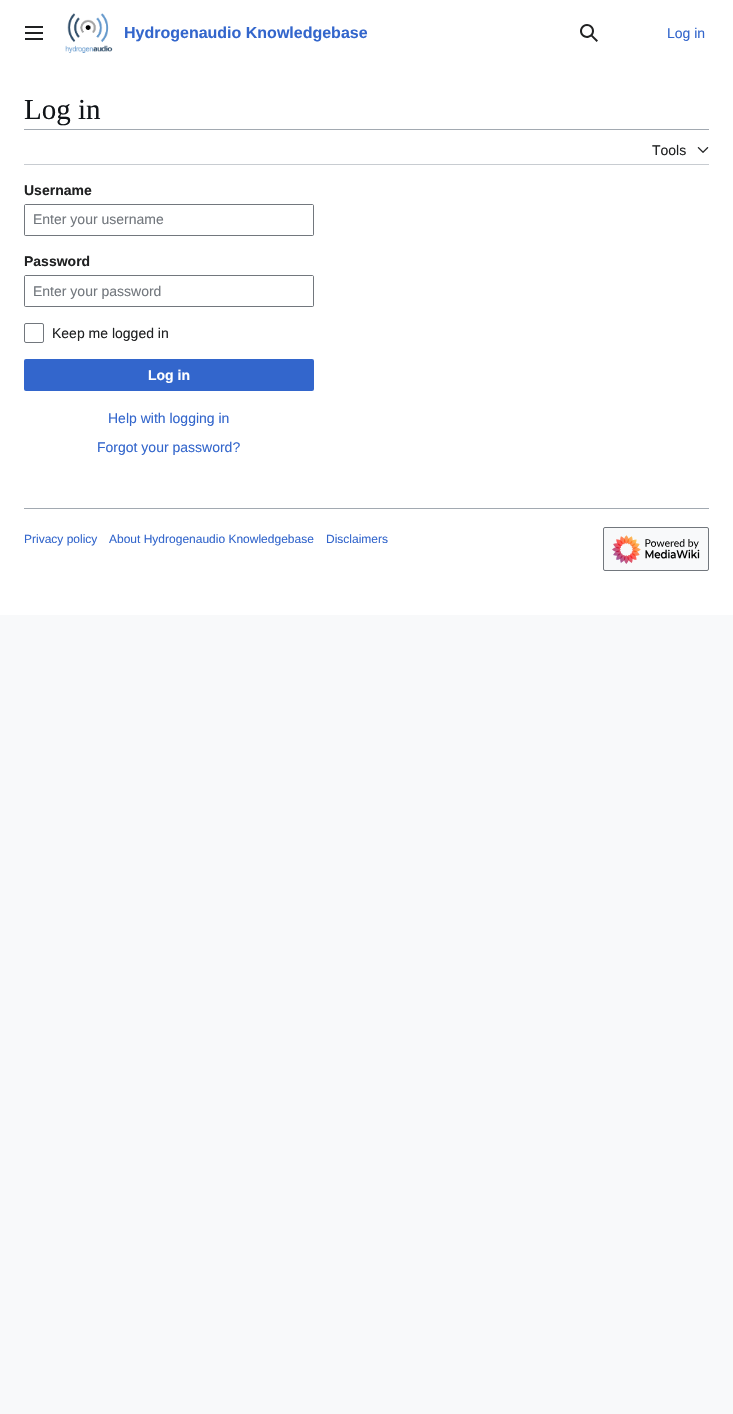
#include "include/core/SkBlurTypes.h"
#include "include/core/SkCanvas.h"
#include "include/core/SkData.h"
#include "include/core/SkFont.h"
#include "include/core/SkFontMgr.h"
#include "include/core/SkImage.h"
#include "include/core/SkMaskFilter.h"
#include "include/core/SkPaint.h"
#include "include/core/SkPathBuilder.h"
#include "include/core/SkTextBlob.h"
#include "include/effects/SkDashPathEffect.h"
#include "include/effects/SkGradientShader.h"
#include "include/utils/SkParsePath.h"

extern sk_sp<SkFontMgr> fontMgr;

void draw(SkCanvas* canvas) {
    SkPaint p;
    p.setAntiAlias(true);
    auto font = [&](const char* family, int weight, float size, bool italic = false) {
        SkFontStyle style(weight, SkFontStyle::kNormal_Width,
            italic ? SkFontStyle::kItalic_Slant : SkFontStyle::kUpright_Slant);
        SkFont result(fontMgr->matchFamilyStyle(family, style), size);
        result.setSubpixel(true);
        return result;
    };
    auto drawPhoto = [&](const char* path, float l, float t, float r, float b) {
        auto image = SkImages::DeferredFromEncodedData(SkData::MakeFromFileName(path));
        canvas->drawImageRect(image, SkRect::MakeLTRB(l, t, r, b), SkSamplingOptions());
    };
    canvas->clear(0xFFF8F9FA);
    p.setColor(0xFFFFFFFF);
    canvas->drawRect(SkRect::MakeLTRB(0, 0, 733, 615), p);
    drawPhoto("media/1.png", 25, 26, 43, 40);
    drawPhoto("media/2.png", 65, 13, 113, 53);
    auto font1 = font("Liberation Sans", 700, 16);
    p.setColor(0xFF3366CC);
    canvas->drawString("Hydrogenaudio Knowledgebase", 124, 38, font1, p);
    drawPhoto("media/3.png", 580, 24, 598, 42);
    auto font2 = font("Liberation Sans", 400, 14);
    canvas->drawString("Log in", 667, 38, font2, p);
    auto font3 = font("Liberation Serif", 400, 29);
    p.setColor(0xFF101418);
    canvas->drawString("Log in", 24, 119, font3, p);
    p.setColor(0xFFA2A9B1);
    canvas->drawRect(SkRect::MakeLTRB(24, 129, 709, 130), p);
    p.setColor(0xFFC8CCD1);
    canvas->drawRect(SkRect::MakeLTRB(24, 164, 709, 165), p);
    p.setColor(0xFF202122);
    canvas->drawString("Tools", 652, 155, font2, p);
    drawPhoto("media/4.png", 697, 147, 709, 153);
    auto font4 = font("Liberation Sans", 700, 14);
    canvas->drawString("Username", 24, 195, font4, p);
    p.setColor(0xFF72777D);
    canvas->drawPath(SkPathBuilder(SkPathFillType::kEvenOdd).moveTo(26, 204).cubicTo(25, 204, 24, 205, 24, 206).lineTo(24, 234).cubicTo(24, 235, 25, 236, 26, 236).lineTo(312, 236).cubicTo(313, 236, 314, 235, 314, 234).lineTo(314, 206).cubicTo(314, 205, 313, 204, 312, 204).close().moveTo(25, 205).lineTo(25, 235).lineTo(313, 235).lineTo(313, 205).close().detach(), p);
    canvas->drawString("Enter your username", 33, 224, font2, p);
    p.setColor(0xFF202122);
    canvas->drawString("Password", 24, 266, font4, p);
    p.setColor(0xFF72777D);
    canvas->drawPath(SkPathBuilder(SkPathFillType::kEvenOdd).moveTo(26, 275).cubicTo(25, 275, 24, 276, 24, 277).lineTo(24, 305).cubicTo(24, 306, 25, 307, 26, 307).lineTo(312, 307).cubicTo(313, 307, 314, 306, 314, 305).lineTo(314, 277).cubicTo(314, 276, 313, 275, 312, 275).close().moveTo(25, 276).lineTo(25, 306).lineTo(313, 306).lineTo(313, 276).close().detach(), p);
    canvas->drawString("Enter your password", 33, 296, font2, p);
    p.setStyle(SkPaint::kStroke_Style);
    p.setStrokeWidth(1);
    canvas->drawRoundRect(SkRect::MakeLTRB(24.5f, 323.5f, 43.5f, 342.5f), 1.5f, 1.5f, p);
    p.setStyle(SkPaint::kFill_Style);
    p.setColor(0xFF202122);
    canvas->drawString("Keep me logged in", 52, 338, font2, p);
    p.setColor(0xFF3366CC);
    canvas->drawRoundRect(SkRect::MakeLTRB(24, 359, 314, 391), 2, 2, p);
    p.setColor(0xFFFFFFFF);
    canvas->drawString("Log in", 148, 380, font4, p);
    p.setColor(0xFF3366CC);
    canvas->drawString("Help with logging in", 108, 423, font2, p);
    canvas->drawString("Forgot your password?", 97, 452, font2, p);
    p.setColor(0xFFA2A9B1);
    canvas->drawRect(SkRect::MakeLTRB(24, 508, 709, 509), p);
    auto font5 = font("Liberation Sans", 400, 12);
    p.setColor(0xFF3366CC);
    {
        const struct { const char* s; float x, y; } items[] = {
            {"Privacy policy", 24, 543},
            {"About Hydrogenaudio Knowledgebase", 109, 543},
            {"Disclaimers", 326, 543},
        };
        for (auto [s, x, y] : items) {
            canvas->drawString(s, x, y, font5, p);
        }
    }
    p.setColor(0xFFF8F9FA);
    canvas->drawRoundRect(SkRect::MakeLTRB(603.5f, 527.5f, 708.5f, 570.5f), 1.5f, 1.5f, p);
    p.setStyle(SkPaint::kStroke_Style);
    p.setColor(0xFF72777D);
    canvas->drawRoundRect(SkRect::MakeLTRB(603.5f, 527.5f, 708.5f, 570.5f), 1.5f, 1.5f, p);
    drawPhoto("media/5.png", 612, 535, 700, 564);
}
